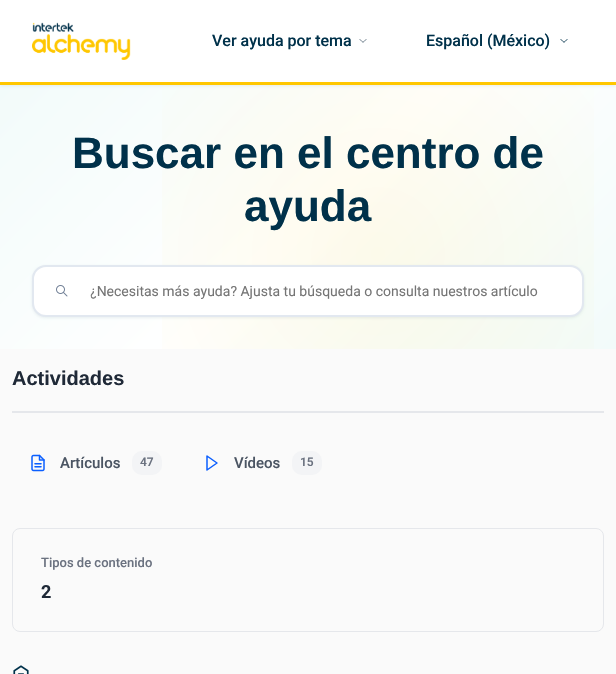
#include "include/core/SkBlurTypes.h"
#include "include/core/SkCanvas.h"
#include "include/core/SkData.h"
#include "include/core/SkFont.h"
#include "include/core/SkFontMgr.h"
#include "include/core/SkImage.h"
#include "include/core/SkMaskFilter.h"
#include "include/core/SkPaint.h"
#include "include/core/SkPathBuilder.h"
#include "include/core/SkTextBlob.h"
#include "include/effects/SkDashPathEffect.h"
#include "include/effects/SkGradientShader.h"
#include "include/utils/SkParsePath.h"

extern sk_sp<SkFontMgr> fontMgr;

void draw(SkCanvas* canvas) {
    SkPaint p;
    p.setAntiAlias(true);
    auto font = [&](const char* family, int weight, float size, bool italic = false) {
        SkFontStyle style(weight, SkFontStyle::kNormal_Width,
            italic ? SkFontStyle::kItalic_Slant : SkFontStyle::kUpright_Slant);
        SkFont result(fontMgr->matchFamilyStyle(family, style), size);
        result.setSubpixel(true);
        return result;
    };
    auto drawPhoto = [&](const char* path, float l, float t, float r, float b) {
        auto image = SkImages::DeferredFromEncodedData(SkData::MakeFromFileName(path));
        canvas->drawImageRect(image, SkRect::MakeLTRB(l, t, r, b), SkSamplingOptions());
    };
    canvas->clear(0xFFFAFAFA);
    {
        const SkColor colors[] = {0xFFF2FBFA, 0xFFFFFFFF, 0xFFF2FBFA};
        const float stops[] = {0, 0.5f, 1};
        const SkPoint ends[] = {{88, -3}, {528, 437}};
        p.setShader(SkGradientShader::MakeLinear(ends, colors, stops, 3, SkTileMode::kClamp));
        p.setAlpha(255);
    }
    canvas->drawRect(SkRect::MakeLTRB(0, 85, 616, 349), p);
    {
        const SkColor colors[] = {0x14FFC700, 0x00FFC700};
        const float stops[] = {0, 0.7f};
        p.setShader(SkGradientShader::MakeRadial({378, 254}, 424, colors, stops, 2, SkTileMode::kClamp));
        p.setAlpha(255);
    }
    canvas->drawRect(SkRect::MakeLTRB(162, 85, 594, 349), p);
    p.setShader(nullptr);
    p.setColor(0x1400314A);
    p.setMaskFilter(SkMaskFilter::MakeBlur(kNormal_SkBlurStyle, 1.5f));
    canvas->drawRect(SkRect::MakeLTRB(0, 1, 616, 86), p);
    p.setMaskFilter(nullptr);
    p.setColor(0xFFFFFFFF);
    canvas->drawRect(SkRect::MakeLTRB(0, 0, 616, 82), p);
    p.setColor(0xFFFFC700);
    canvas->drawRect(SkRect::MakeLTRB(0, 82, 616, 85), p);
    drawPhoto("media/1.png", 32, 22, 131, 60);
    auto font1 = font("Roboto", 500, 16);
    p.setColor(0xFF00314A);
    canvas->drawString("Ver ayuda por tema", 212, 46, font1, p);
    p.setStyle(SkPaint::kStroke_Style);
    p.setStrokeWidth(1);
    p.setStrokeCap(SkPaint::kRound_Cap);
    p.setColor(0xFF5A6D7C);
    canvas->drawPath(SkPathBuilder().moveTo(360, 39.5f).cubicTo(363.5f, 43, 362.5f, 43, 366, 39.5f).detach(), p);
    p.setStyle(SkPaint::kFill_Style);
    p.setColor(0xFF00314A);
    canvas->drawString("Español (México)", 426, 46, font1, p);
    p.setStyle(SkPaint::kStroke_Style);
    canvas->drawPath(SkPathBuilder().moveTo(561, 39.5f).cubicTo(564.5f, 43, 563.5f, 43, 567, 39.5f).detach(), p);
    auto font2 = font("Liberation Sans", 700, 44);
    p.setStyle(SkPaint::kFill_Style);
    canvas->drawString("Buscar en el centro de", 72, 168, font2, p);
    canvas->drawString("ayuda", 244, 221, font2, p);
    p.setColor(0x1400314A);
    p.setMaskFilter(SkMaskFilter::MakeBlur(kNormal_SkBlurStyle, 1.5f));
    canvas->drawRoundRect(SkRect::MakeLTRB(32, 266, 584, 318), 14, 14, p);
    p.setMaskFilter(nullptr);
    p.setColor(0xFFFFFFFF);
    canvas->drawRoundRect(SkRect::MakeLTRB(33, 266, 583, 316), 13, 13, p);
    p.setStyle(SkPaint::kStroke_Style);
    p.setStrokeWidth(2);
    p.setStrokeCap(SkPaint::kButt_Cap);
    p.setColor(0xFFE2E8F0);
    canvas->drawRoundRect(SkRect::MakeLTRB(33, 266, 583, 316), 13, 13, p);
    drawPhoto("media/2.png", 56, 285, 68, 297);
    canvas->save();
    canvas->clipPath(SkPathBuilder().moveTo(110, 271).lineTo(538, 271).cubicTo(549, 271, 558, 280, 558, 291).cubicTo(558, 302, 549, 311, 538, 311).lineTo(110, 311).cubicTo(99, 311, 90, 302, 90, 291).cubicTo(90, 280, 99, 271, 110, 271).close().detach(), true);
    auto font3 = font("Roboto", 400, 14);
    p.setStyle(SkPaint::kFill_Style);
    p.setColor(0xFF757575);
    canvas->drawString("¿Necesitas más ayuda? Ajusta tu búsqueda o consulta nuestros artículo", 90, 296, font3, p);
    canvas->restore();
    p.setColor(0xFFE5E7EB);
    canvas->drawRect(SkRect::MakeLTRB(12, 411, 604, 413), p);
    auto font4 = font("Liberation Sans", 700, 20);
    p.setColor(0xFF1F2937);
    canvas->drawString("Actividades", 12, 385, font4, p);
    drawPhoto("media/3.png", 31, 454, 45, 472);
    auto font5 = font("Roboto", 500, 15);
    p.setColor(0xFF4B5563);
    canvas->drawString("Artículos", 60, 468, font5, p);
    p.setColor(0xFFF3F4F6);
    canvas->drawRoundRect(SkRect::MakeLTRB(132, 451, 162, 475), 10, 10, p);
    auto font6 = font("Roboto", 600, 12);
    p.setColor(0xFF6B7280);
    canvas->drawString("47", 140, 466, font6, p);
    p.setStyle(SkPaint::kStroke_Style);
    p.setStrokeWidth(1.5f);
    p.setStrokeCap(SkPaint::kRound_Cap);
    p.setStrokeJoin(SkPaint::kRound_Join);
    p.setColor(0xFF0B5FFF);
    canvas->drawPath(SkPathBuilder().moveTo(207, 456).lineTo(217, 463).lineTo(207, 470).close().detach(), p);
    p.setStyle(SkPaint::kFill_Style);
    p.setColor(0xFF4B5563);
    canvas->drawString("Vídeos", 234, 468, font5, p);
    p.setColor(0xFFF3F4F6);
    canvas->drawRoundRect(SkRect::MakeLTRB(292, 451, 322, 475), 10, 10, p);
    p.setColor(0xFF6B7280);
    canvas->drawString("15", 300, 466, font6, p);
    p.setStyle(SkPaint::kStroke_Style);
    p.setStrokeWidth(1);
    p.setStrokeCap(SkPaint::kButt_Cap);
    p.setStrokeJoin(SkPaint::kMiter_Join);
    p.setColor(0xFFE5E7EB);
    canvas->drawRoundRect(SkRect::MakeLTRB(12.5f, 528.5f, 603.5f, 631.5f), 7.5f, 7.5f, p);
    auto font7 = font("Roboto", 500, 13);
    p.setStyle(SkPaint::kFill_Style);
    p.setColor(0xFF6B7280);
    canvas->drawString("Tipos de contenido", 41, 567, font7, p);
    auto font8 = font("Roboto", 700, 18);
    p.setColor(0xFF1F2937);
    canvas->drawString("2", 41, 598, font8, p);
    drawPhoto("media/4.png", 13, 665, 29, 674);
}
